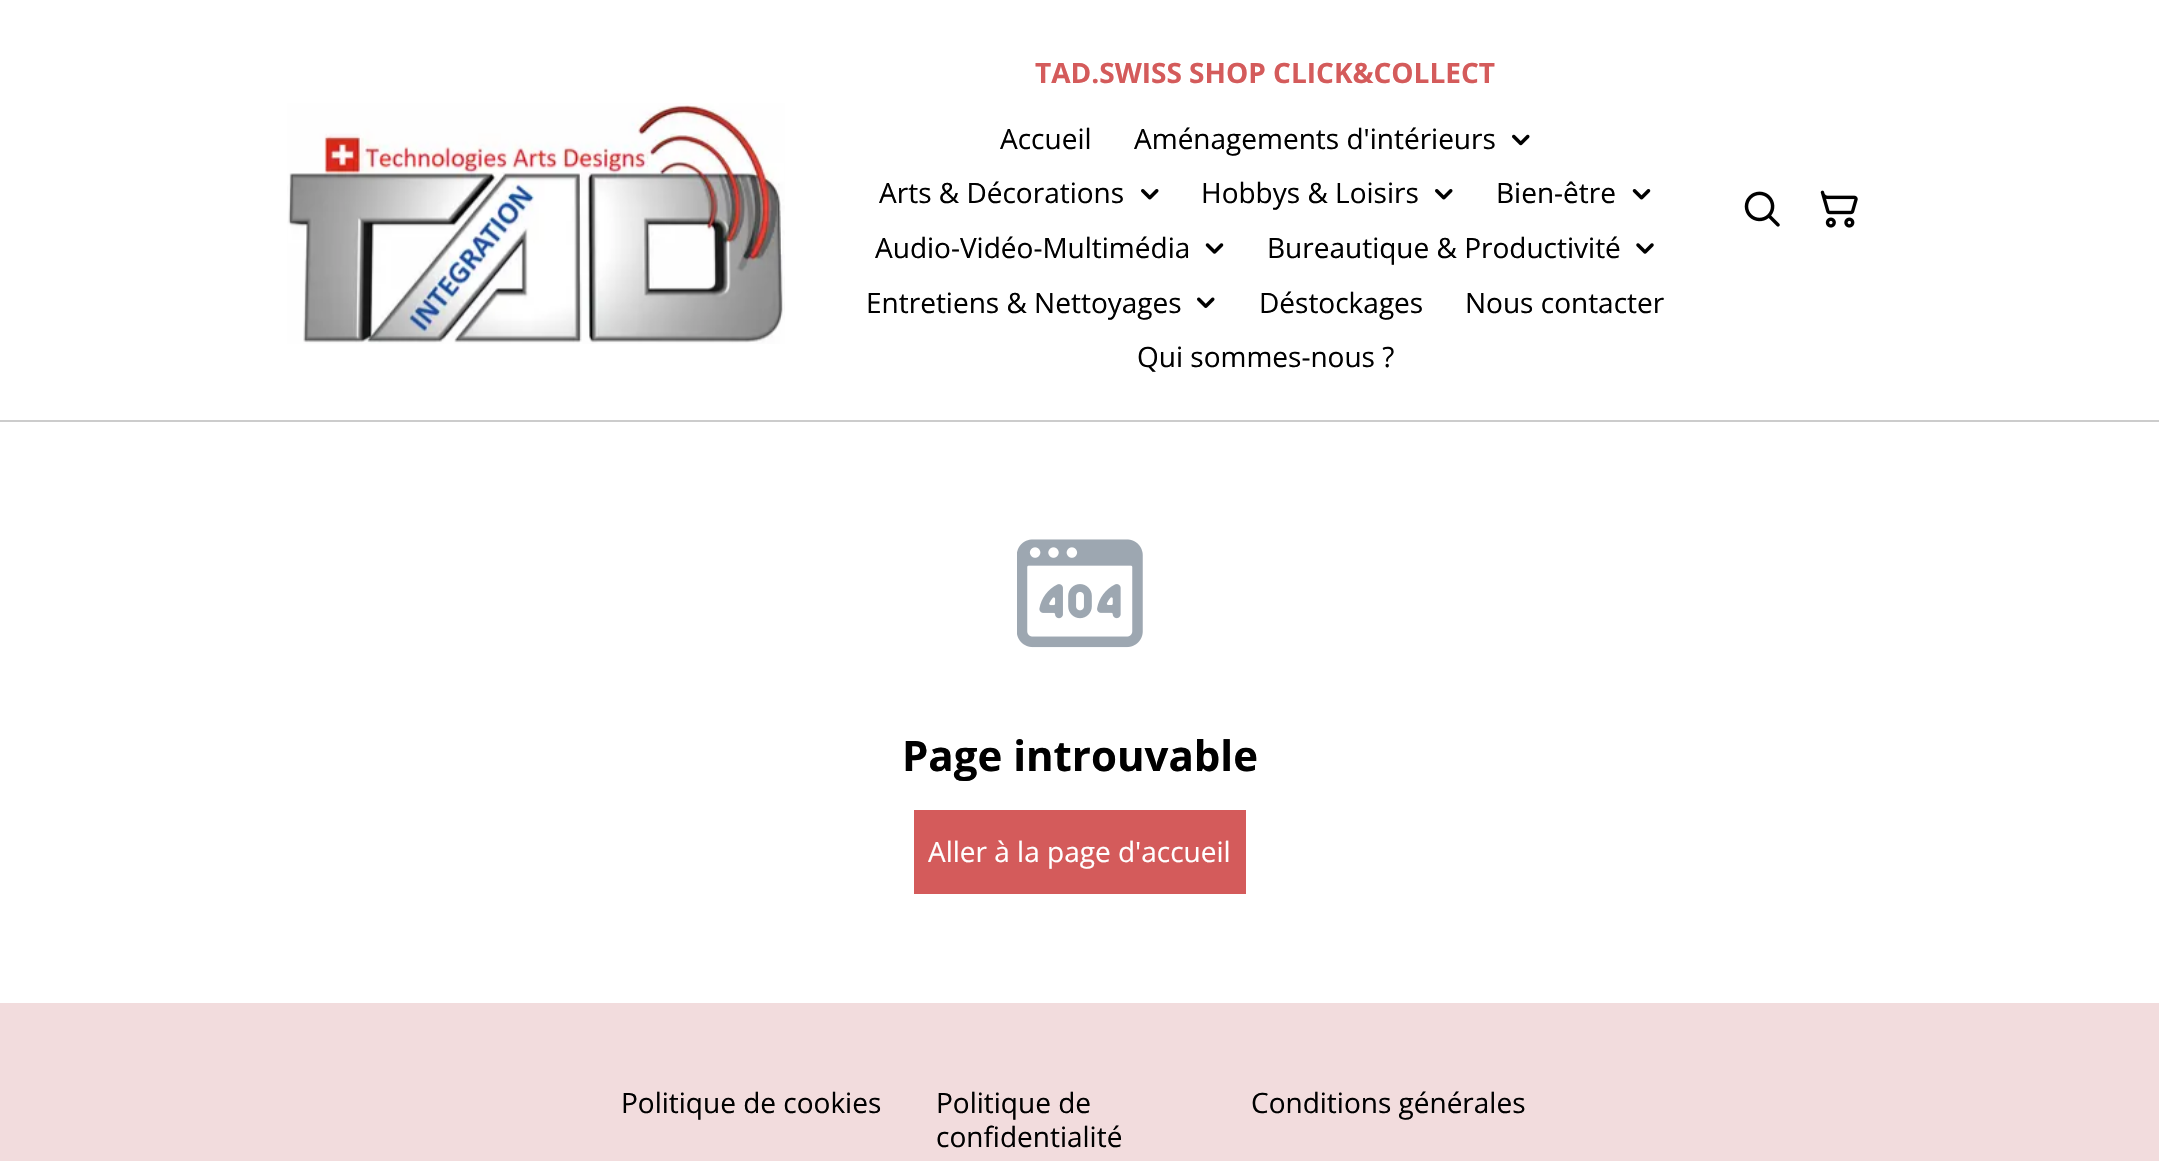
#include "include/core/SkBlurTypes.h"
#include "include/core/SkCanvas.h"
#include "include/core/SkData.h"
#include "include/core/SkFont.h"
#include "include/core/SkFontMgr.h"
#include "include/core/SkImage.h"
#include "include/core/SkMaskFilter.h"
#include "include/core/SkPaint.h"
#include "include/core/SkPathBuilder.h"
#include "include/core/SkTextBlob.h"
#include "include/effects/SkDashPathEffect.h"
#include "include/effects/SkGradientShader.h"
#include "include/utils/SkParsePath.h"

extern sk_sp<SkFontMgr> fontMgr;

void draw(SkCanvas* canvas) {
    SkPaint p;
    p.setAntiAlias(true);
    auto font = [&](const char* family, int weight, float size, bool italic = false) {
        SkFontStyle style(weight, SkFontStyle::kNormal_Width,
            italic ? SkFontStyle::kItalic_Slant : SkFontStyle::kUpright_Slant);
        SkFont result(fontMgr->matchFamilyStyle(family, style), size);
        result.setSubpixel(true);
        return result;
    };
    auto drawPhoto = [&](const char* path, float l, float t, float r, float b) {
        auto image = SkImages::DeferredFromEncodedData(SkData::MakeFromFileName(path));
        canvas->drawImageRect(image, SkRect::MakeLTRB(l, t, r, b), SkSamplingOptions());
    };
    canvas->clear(0xFFFFFFFF);
    p.setColor(0xFFCCCCCC);
    canvas->drawRect(SkRect::MakeLTRB(0, 420, 2159, 422), p);
    drawPhoto("media/1.png", 287, 103, 785, 344);
    auto font1 = font("Open Sans", 700, 28);
    p.setColor(0xFFD45B5B);
    canvas->drawString("TAD.SWISS SHOP CLICK&COLLECT", 1035, 83, font1, p);
    auto font2 = font("Open Sans", 400, 28);
    p.setColor(0xFF000000);
    canvas->drawString("Accueil", 1000, 149, font2, p);
    canvas->drawString("Aménagements d'intérieurs", 1134, 149, font2, p);
    drawPhoto("media/2.png", 1512, 134, 1530, 146);
    canvas->drawString("Arts & Décorations", 879, 203, font2, p);
    drawPhoto("media/3.png", 1141, 189, 1159, 200);
    canvas->drawString("Hobbys & Loisirs", 1201, 203, font2, p);
    drawPhoto("media/3.png", 1435, 189, 1453, 200);
    canvas->drawString("Bien-être", 1496, 203, font2, p);
    drawPhoto("media/4.png", 1632, 189, 1651, 200);
    canvas->drawString("Audio-Vidéo-Multimédia", 875, 258, font2, p);
    drawPhoto("media/5.png", 1205, 243, 1224, 254);
    canvas->drawString("Bureautique & Productivité", 1267, 258, font2, p);
    drawPhoto("media/6.png", 1636, 243, 1654, 254);
    canvas->drawString("Entretiens & Nettoyages", 866, 313, font2, p);
    drawPhoto("media/7.png", 1197, 297, 1215, 308);
    {
        const struct { const char* s; float x, y; } items[] = {
            {"Déstockages", 1259, 313},
            {"Nous contacter", 1465, 313},
            {"Qui sommes-nous ?", 1137, 367},
        };
        for (auto [s, x, y] : items) {
            canvas->drawString(s, x, y, font2, p);
        }
    }
    drawPhoto("media/8.png", 1744, 191, 1780, 227);
    drawPhoto("media/9.png", 1820, 190, 1858, 228);
    drawPhoto("media/10.png", 1017, 539, 1143, 648);
    auto font3 = font("Open Sans", 700, 42);
    canvas->drawString("Page introuvable", 902, 771, font3, p);
    p.setColor(0xFFD45B5B);
    canvas->drawRect(SkRect::MakeLTRB(914, 810, 1246, 894), p);
    p.setColor(0xFFFFFFFF);
    canvas->drawString("Aller à la page d'accueil", 928, 862, font2, p);
    p.setColor(0xFFF2DCDD);
    canvas->drawRect(SkRect::MakeLTRB(0, 1003, 2159, 1161), p);
    p.setColor(0xFF000000);
    {
        const struct { const char* s; float x, y; } items[] = {
            {"Politique de cookies", 621, 1113},
            {"Politique de", 936, 1113},
            {"confidentialité", 936, 1147},
            {"Conditions générales", 1251, 1113},
        };
        for (auto [s, x, y] : items) {
            canvas->drawString(s, x, y, font2, p);
        }
    }
}
